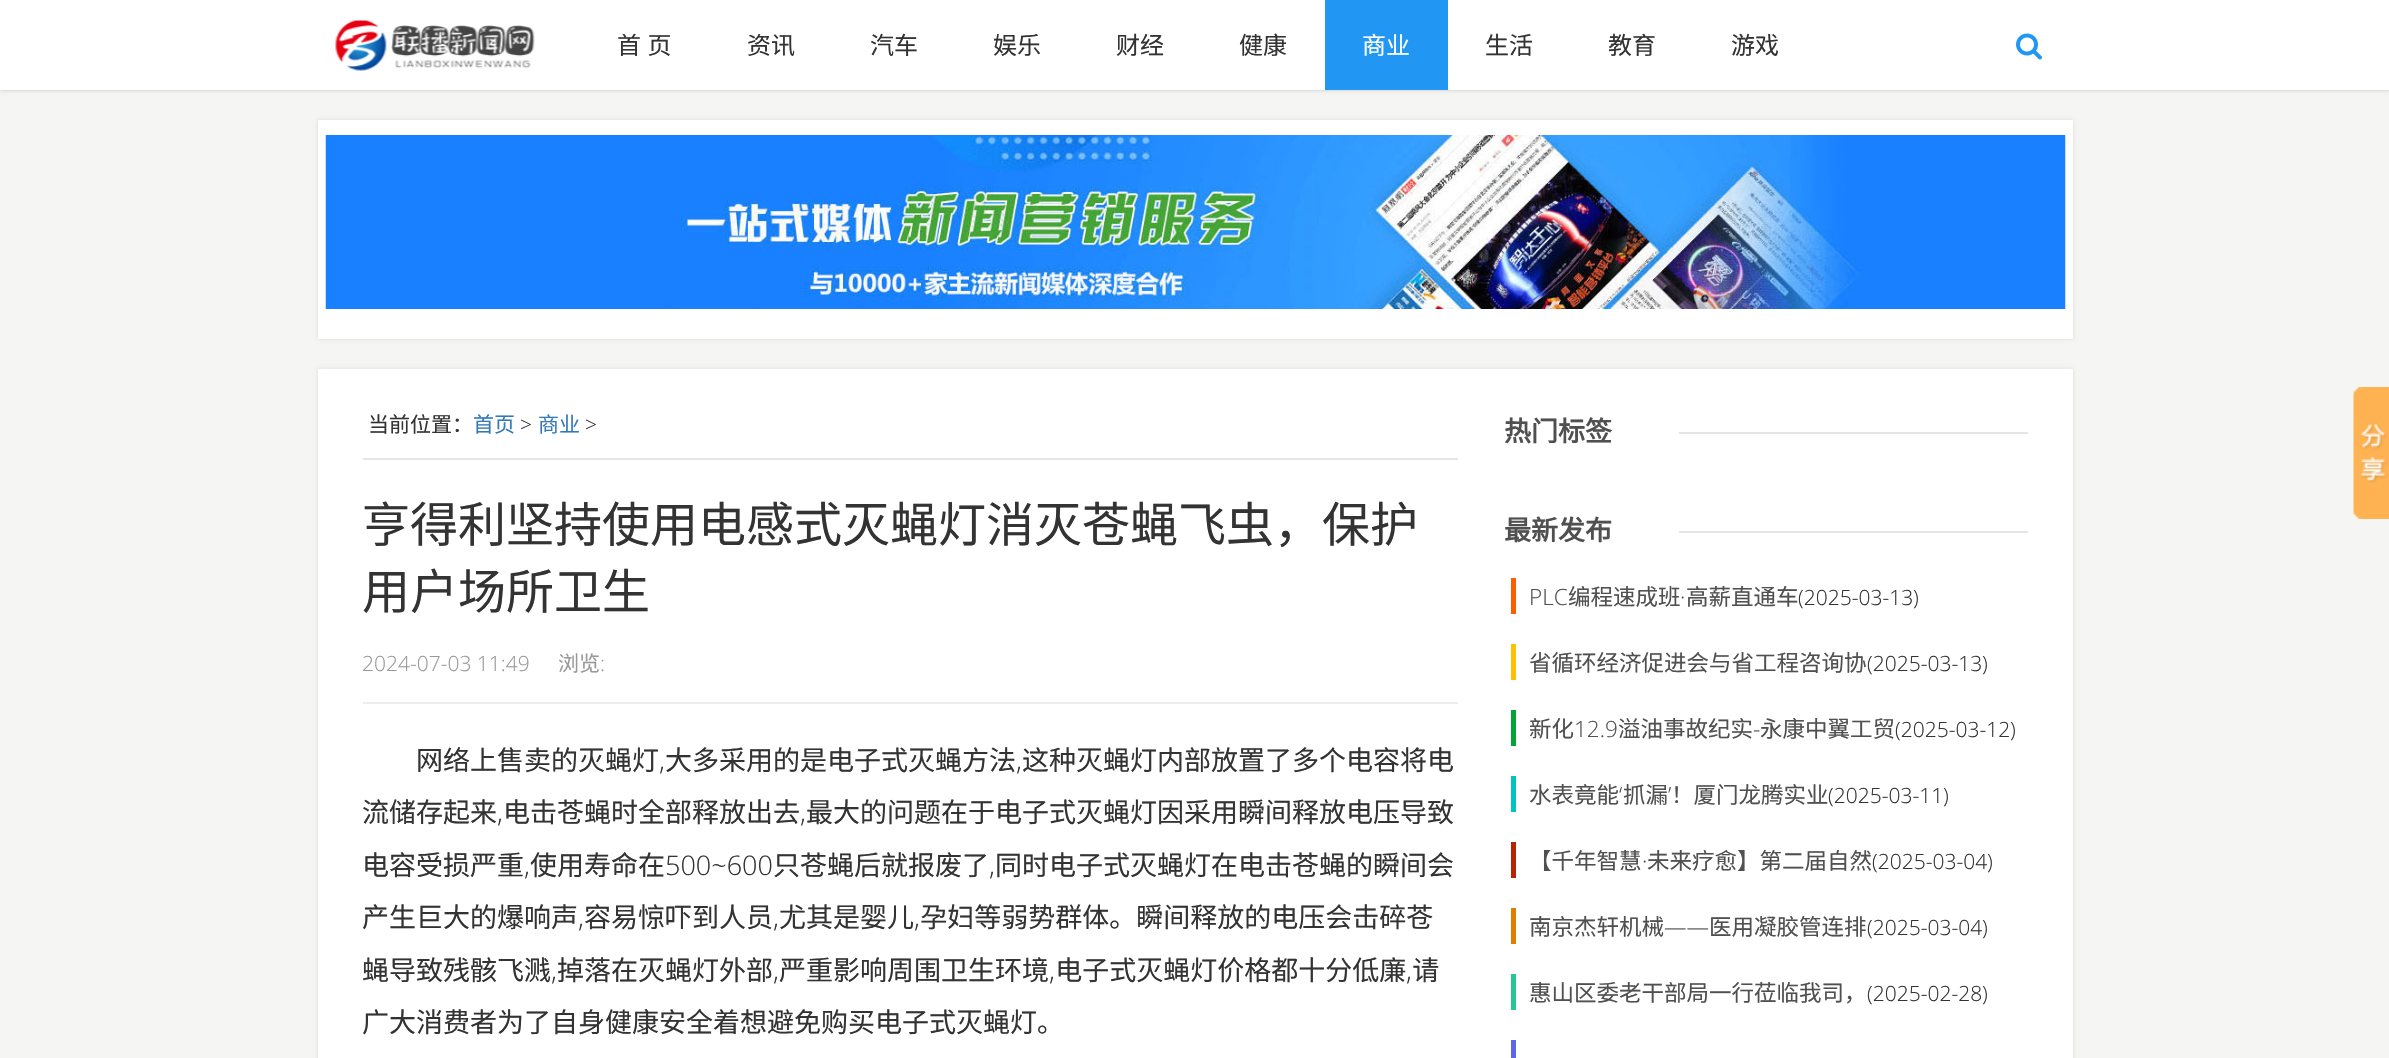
#include "include/core/SkBlurTypes.h"
#include "include/core/SkCanvas.h"
#include "include/core/SkData.h"
#include "include/core/SkFont.h"
#include "include/core/SkFontMgr.h"
#include "include/core/SkImage.h"
#include "include/core/SkMaskFilter.h"
#include "include/core/SkPaint.h"
#include "include/core/SkPathBuilder.h"
#include "include/core/SkTextBlob.h"
#include "include/effects/SkDashPathEffect.h"
#include "include/effects/SkGradientShader.h"
#include "include/utils/SkParsePath.h"

extern sk_sp<SkFontMgr> fontMgr;

void draw(SkCanvas* canvas) {
    SkPaint p;
    p.setAntiAlias(true);
    auto font = [&](const char* family, int weight, float size, bool italic = false) {
        SkFontStyle style(weight, SkFontStyle::kNormal_Width,
            italic ? SkFontStyle::kItalic_Slant : SkFontStyle::kUpright_Slant);
        SkFont result(fontMgr->matchFamilyStyle(family, style), size);
        result.setSubpixel(true);
        return result;
    };
    auto drawTracked = [&](const char* s, float x, float y, const SkFont& font, const SkPaint& ink, float letter, float word) {
        std::vector<SkGlyphID> glyphs(font.countText(s, strlen(s), SkTextEncoding::kUTF8));
        std::vector<float> xs(glyphs.size());
        font.textToGlyphs(s, strlen(s), SkTextEncoding::kUTF8, glyphs);
        font.getXPos(glyphs, xs, x);
        float extra = 0;
        for (size_t i = 0; i < glyphs.size(); i++) {
            xs[i] += extra;
            extra += letter + word * (glyphs[i] == font.unicharToGlyph(' '));
        }
        canvas->drawTextBlob(SkTextBlob::MakeFromPosHGlyphs(glyphs, xs, y, font), 0, 0, ink);
    };
    auto drawPhoto = [&](const char* path, float l, float t, float r, float b) {
        auto image = SkImages::DeferredFromEncodedData(SkData::MakeFromFileName(path));
        canvas->drawImageRect(image, SkRect::MakeLTRB(l, t, r, b), SkSamplingOptions());
    };
    canvas->clear(0xFFF5F5F3);
    p.setColor(0x33000000);
    p.setMaskFilter(SkMaskFilter::MakeBlur(kNormal_SkBlurStyle, 2));
    canvas->drawRect(SkRect::MakeLTRB(0, 0, 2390, 90), p);
    p.setMaskFilter(nullptr);
    p.setColor(0xFFFFFFFF);
    canvas->drawRect(SkRect::MakeLTRB(0, 0, 2389, 90), p);
    drawPhoto("media/1.png", 335, 20, 535, 71);
    auto font1 = font("Noto Sans CJK SC", 400, 24);
    p.setColor(0xFF333333);
    drawTracked("首 页", 617, 54, font1, p, 0, 1);
    {
        const struct { const char* s; float x, y; } items[] = {
            {"资讯", 747, 54},
            {"汽车", 870, 54},
            {"娱乐", 993, 54},
            {"财经", 1116, 54},
            {"健康", 1239, 54},
        };
        for (auto [s, x, y] : items) {
            canvas->drawString(s, x, y, font1, p);
        }
    }
    p.setColor(0xFF2196F3);
    canvas->drawRect(SkRect::MakeLTRB(1325, 0, 1448, 90), p);
    p.setColor(0xFFFFFFFF);
    canvas->drawString("商业", 1362, 54, font1, p);
    p.setColor(0xFF333333);
    {
        const struct { const char* s; float x, y; } items[] = {
            {"生活", 1485, 54},
            {"教育", 1608, 54},
            {"游戏", 1731, 54},
        };
        for (auto [s, x, y] : items) {
            canvas->drawString(s, x, y, font1, p);
        }
    }
    drawPhoto("media/2.png", 2016, 33, 2042, 60);
    p.setColor(0x1A000000);
    p.setMaskFilter(SkMaskFilter::MakeBlur(kNormal_SkBlurStyle, 2));
    canvas->drawRect(SkRect::MakeLTRB(318, 120, 2073, 339), p);
    p.setMaskFilter(nullptr);
    p.setColor(0xFFFFFFFF);
    canvas->drawRect(SkRect::MakeLTRB(318, 120, 2073, 339), p);
    drawPhoto("media/3.png", 325, 135, 2066, 309);
    p.setColor(0x1A000000);
    p.setMaskFilter(SkMaskFilter::MakeBlur(kNormal_SkBlurStyle, 2));
    canvas->drawRect(SkRect::MakeLTRB(318, 369, 2073, 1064), p);
    p.setMaskFilter(nullptr);
    p.setColor(0xFFFFFFFF);
    canvas->drawRect(SkRect::MakeLTRB(318, 369, 2073, 1058), p);
    p.setColor(0xFFE5E5E5);
    canvas->drawRect(SkRect::MakeLTRB(363, 458, 1458, 460), p);
    auto font2 = font("Noto Sans CJK SC", 400, 21);
    p.setColor(0xFF333333);
    canvas->drawString("当前位置：", 368, 432, font2, p);
    p.setColor(0xFF337AB7);
    canvas->drawString("首页", 473, 432, font2, p);
    auto font3 = font("Open Sans", 300, 21);
    p.setColor(0xFF333333);
    canvas->drawString(">", 520, 432, font3, p);
    p.setColor(0xFF337AB7);
    canvas->drawString("商业", 538, 432, font2, p);
    p.setColor(0xFF333333);
    canvas->drawString(">", 585, 432, font3, p);
    auto font4 = font("Noto Sans CJK SC", 400, 48);
    canvas->drawString("亨得利坚持使用电感式灭蝇灯消灭苍蝇飞虫，保护", 362, 542, font4, p);
    canvas->drawString("用户场所卫生", 362, 609, font4, p);
    p.setColor(0xFFEEEEEE);
    canvas->drawRect(SkRect::MakeLTRB(363, 702, 1458, 704), p);
    p.setColor(0xFF999999);
    canvas->drawString("2024-07-03 11:49", 362, 671, font3, p);
    canvas->drawString("浏览", 558, 671, font2, p);
    canvas->drawString(":", 600, 671, font3, p);
    auto font5 = font("Noto Sans CJK SC", 400, 27);
    p.setColor(0xFF333333);
    canvas->drawString("网络上售卖的灭蝇灯 大多采用的是电子式灭蝇方法 这种灭蝇灯内部放置了多个电容将电", 416, 770, font5, p);
    auto font6 = font("Open Sans", 300, 27);
    canvas->drawString(",", 659, 770, font6, p);
    canvas->drawString(",", 1016, 770, font6, p);
    canvas->drawString("流储存起来 电击苍蝇时全部释放出去 最大的问题在于电子式灭蝇灯因采用瞬间释放电压导致", 362, 822, font5, p);
    canvas->drawString(",", 497, 822, font6, p);
    canvas->drawString(",", 800, 822, font6, p);
    canvas->drawString("电容受损严重 使用寿命在", 362, 875, font5, p);
    canvas->drawString("500~600", 665, 875, font6, p);
    canvas->drawString("只苍蝇后就报废了 同时电子式灭蝇灯在电击苍蝇的瞬间会", 773, 875, font5, p);
    canvas->drawString(",", 524, 875, font6, p);
    canvas->drawString(",", 989, 875, font6, p);
    canvas->drawString("产生巨大的爆响声 容易惊吓到人员 尤其是婴儿 孕妇等弱势群体。瞬间释放的电压会击碎苍", 362, 927, font5, p);
    {
        const struct { const char* s; float x, y; } items[] = {
            {",", 578, 927},
            {",", 773, 927},
            {",", 914, 927},
        };
        for (auto [s, x, y] : items) {
            canvas->drawString(s, x, y, font6, p);
        }
    }
    canvas->drawString("蝇导致残骸飞溅 掉落在灭蝇灯外部 严重影响周围卫生环境 电子式灭蝇灯价格都十分低廉 请", 362, 980, font5, p);
    {
        const struct { const char* s; float x, y; } items[] = {
            {",", 551, 980},
            {",", 773, 980},
            {",", 1049, 980},
            {",", 1406, 980},
        };
        for (auto [s, x, y] : items) {
            canvas->drawString(s, x, y, font6, p);
        }
    }
    canvas->drawString("广大消费者为了自身健康安全着想避免购买电子式灭蝇灯。", 362, 1032, font5, p);
    auto font7 = font("Noto Sans CJK SC", 700, 27);
    p.setColor(0xFF505050);
    canvas->drawString("热门标签", 1504, 441, font7, p);
    p.setColor(0xFFE5E5E5);
    canvas->drawRect(SkRect::MakeLTRB(1679, 432, 2028, 434), p);
    p.setColor(0xFF505050);
    canvas->drawString("最新发布", 1504, 540, font7, p);
    p.setColor(0xFFE5E5E5);
    canvas->drawRect(SkRect::MakeLTRB(1679, 531, 2028, 533), p);
    p.setColor(0xFFFD5F00);
    canvas->drawRect(SkRect::MakeLTRB(1511, 578, 1516, 614), p);
    auto font8 = font("Open Sans", 300, 22.5f);
    p.setColor(0xFF505050);
    canvas->drawString("PLC", 1529, 605, font8, p);
    auto font9 = font("Noto Sans CJK SC", 400, 22.5f);
    canvas->drawString("编程速成班", 1568, 605, font9, p);
    canvas->drawString("·", 1680, 605, font8, p);
    canvas->drawString("高薪直通车", 1686, 605, font9, p);
    p.setColor(0xFF333333);
    canvas->drawString("(2025-03-13)", 1798, 605, font3, p);
    p.setColor(0xFFFFC002);
    canvas->drawRect(SkRect::MakeLTRB(1511, 644, 1516, 680), p);
    p.setColor(0xFF505050);
    canvas->drawString("省循环经济促进会与省工程咨询协", 1529, 671, font9, p);
    p.setColor(0xFF333333);
    canvas->drawString("(2025-03-13)", 1867, 671, font3, p);
    p.setColor(0xFF00A635);
    canvas->drawRect(SkRect::MakeLTRB(1511, 710, 1516, 746), p);
    p.setColor(0xFF505050);
    canvas->drawString("新化", 1529, 737, font9, p);
    canvas->drawString("12.9", 1574, 737, font8, p);
    canvas->drawString("溢油事故纪实", 1618, 737, font9, p);
    canvas->drawString("-", 1753, 737, font8, p);
    canvas->drawString("永康中翼工贸", 1760, 737, font9, p);
    p.setColor(0xFF333333);
    canvas->drawString("(2025-03-12)", 1895, 737, font3, p);
    p.setColor(0xFF00C3C4);
    canvas->drawRect(SkRect::MakeLTRB(1511, 776, 1516, 812), p);
    p.setColor(0xFF505050);
    canvas->drawString("水表竟能", 1529, 803, font9, p);
    canvas->drawString("‘", 1619, 803, font8, p);
    canvas->drawString("抓漏", 1623, 803, font9, p);
    canvas->drawString("’", 1668, 803, font8, p);
    canvas->drawString("！厦门龙腾实业", 1671, 803, font9, p);
    p.setColor(0xFF333333);
    canvas->drawString("(2025-03-11)", 1828, 803, font3, p);
    p.setColor(0xFFB92400);
    canvas->drawRect(SkRect::MakeLTRB(1511, 842, 1516, 878), p);
    p.setColor(0xFF505050);
    canvas->drawString("【千年智慧", 1529, 869, font9, p);
    canvas->drawString("·", 1642, 869, font8, p);
    canvas->drawString("未来疗愈】第二届自然", 1647, 869, font9, p);
    p.setColor(0xFF333333);
    canvas->drawString("(2025-03-04)", 1872, 869, font3, p);
    p.setColor(0xFFE07E00);
    canvas->drawRect(SkRect::MakeLTRB(1511, 908, 1516, 944), p);
    p.setColor(0xFF505050);
    canvas->drawString("南京杰轩机械", 1529, 935, font9, p);
    canvas->drawString("——", 1664, 935, font8, p);
    canvas->drawString("医用凝胶管连排", 1709, 935, font9, p);
    p.setColor(0xFF333333);
    canvas->drawString("(2025-03-04)", 1867, 935, font3, p);
    p.setColor(0xFF27C790);
    canvas->drawRect(SkRect::MakeLTRB(1511, 974, 1516, 1010), p);
    p.setColor(0xFF505050);
    canvas->drawString("惠山区委老干部局一行莅临我司，", 1529, 1001, font9, p);
    p.setColor(0xFF333333);
    canvas->drawString("(2025-02-28)", 1867, 1001, font3, p);
    p.setColor(0xFF5C68EC);
    canvas->drawRect(SkRect::MakeLTRB(1511, 1040, 1516, 1058), p);
    drawPhoto("media/4.png", 2353, 387, 2389, 519);
}
